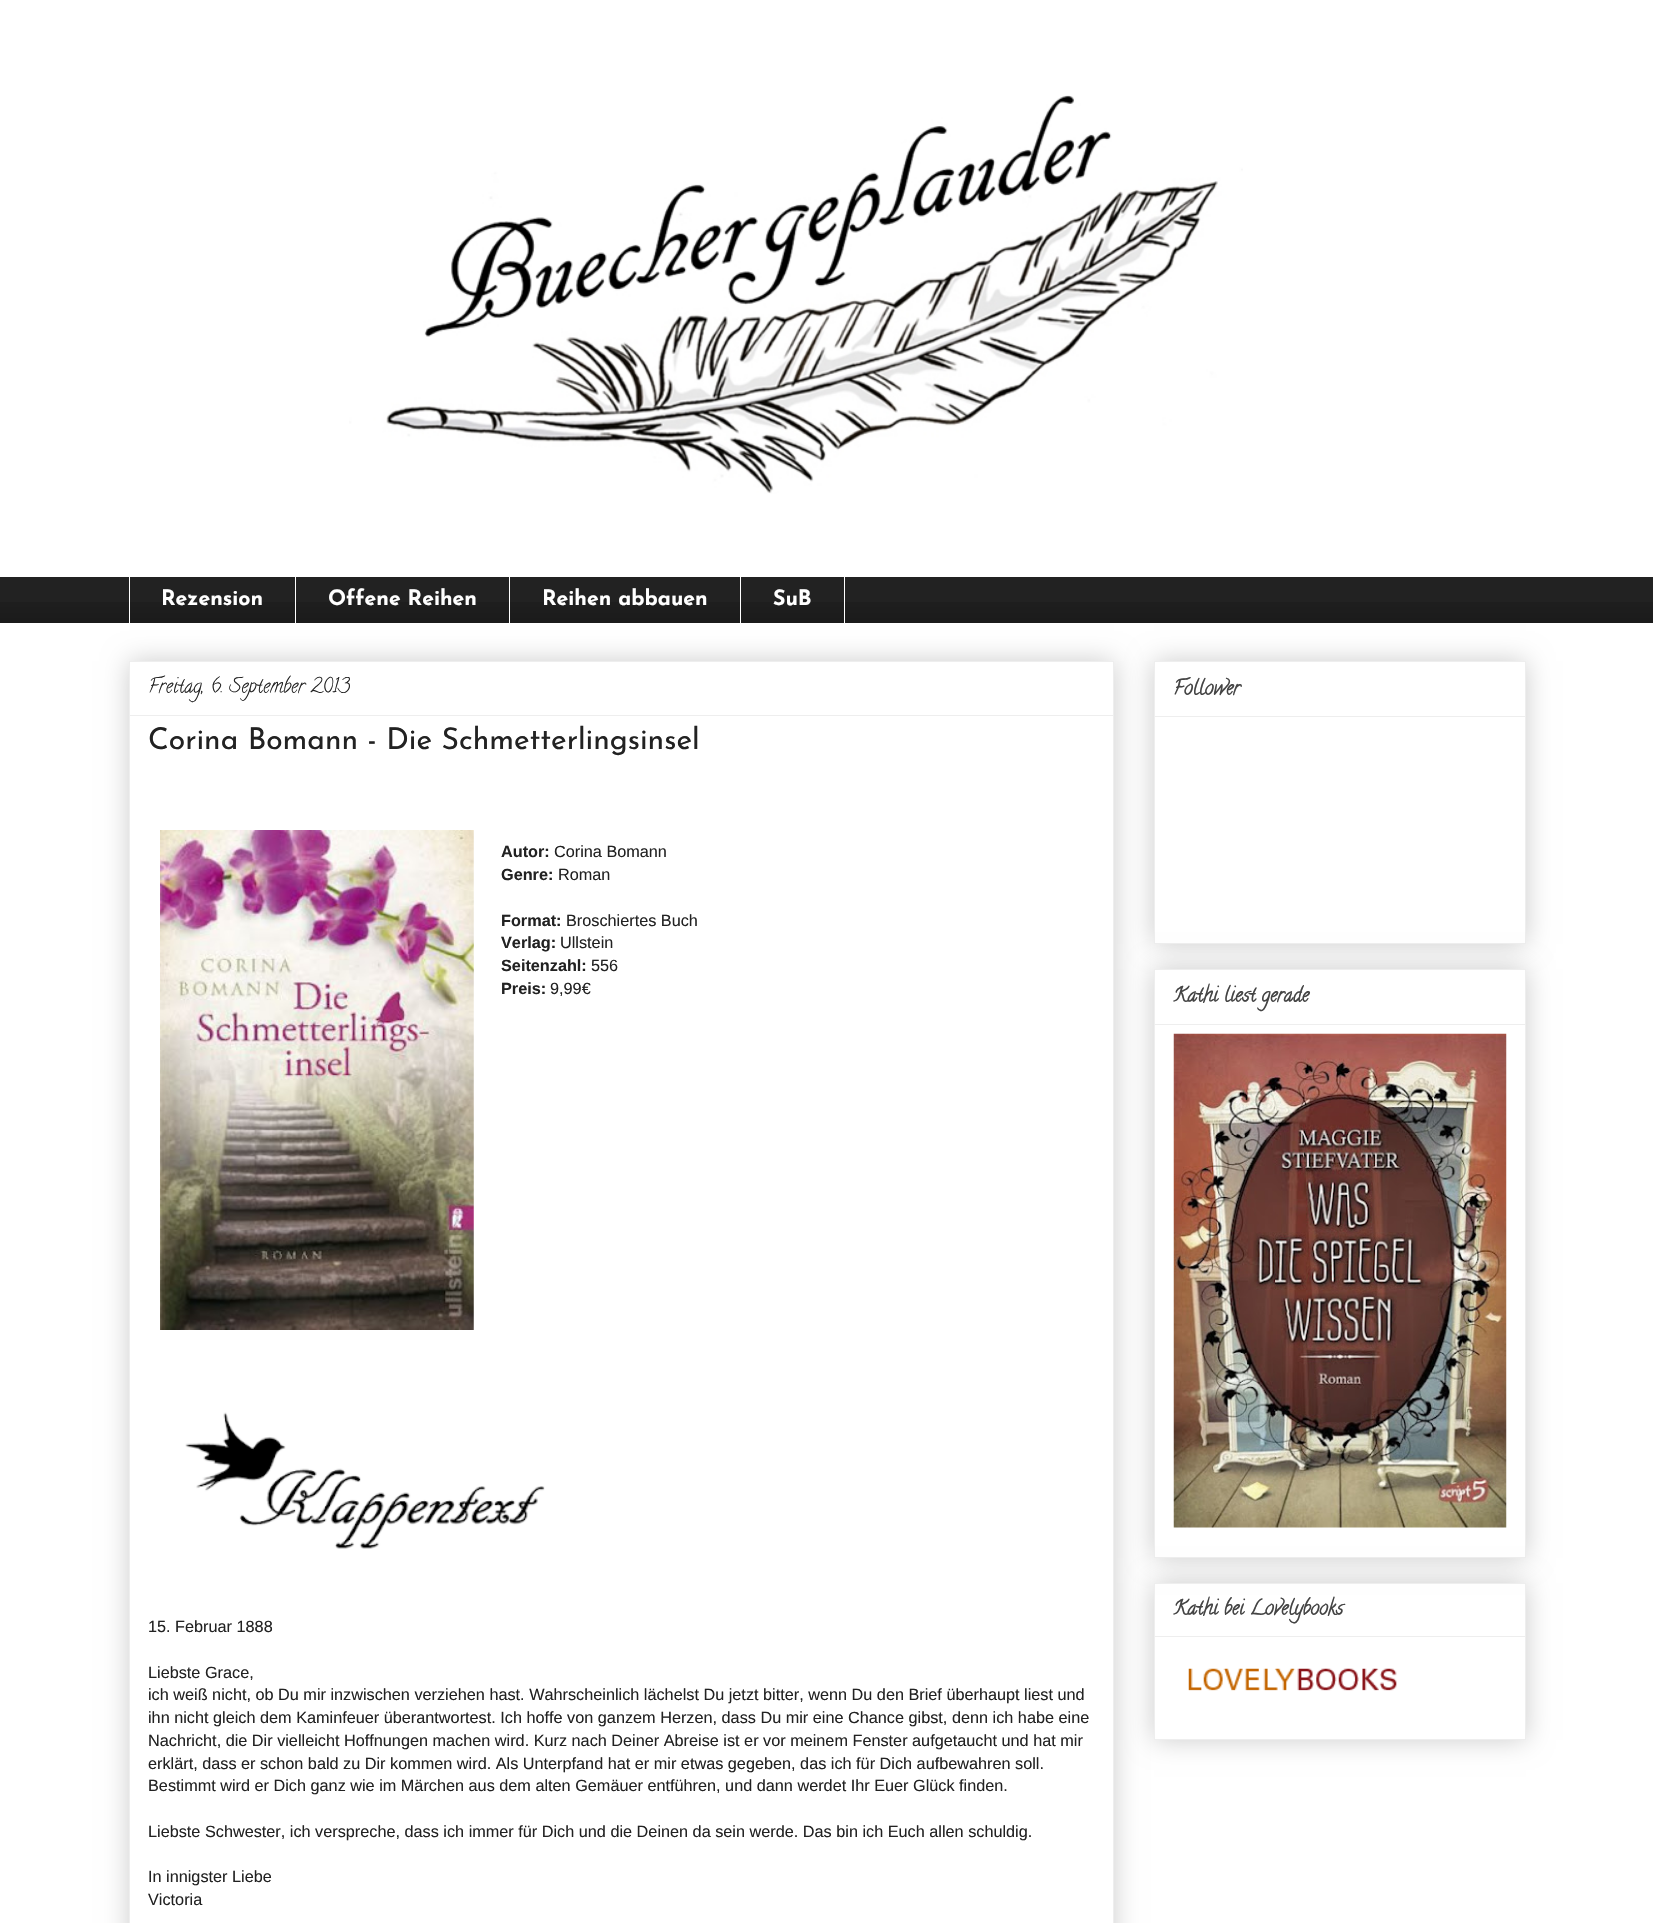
#include "include/core/SkBlurTypes.h"
#include "include/core/SkCanvas.h"
#include "include/core/SkData.h"
#include "include/core/SkFont.h"
#include "include/core/SkFontMgr.h"
#include "include/core/SkImage.h"
#include "include/core/SkMaskFilter.h"
#include "include/core/SkPaint.h"
#include "include/core/SkPathBuilder.h"
#include "include/core/SkTextBlob.h"
#include "include/effects/SkDashPathEffect.h"
#include "include/effects/SkGradientShader.h"
#include "include/utils/SkParsePath.h"

extern sk_sp<SkFontMgr> fontMgr;

void draw(SkCanvas* canvas) {
    SkPaint p;
    p.setAntiAlias(true);
    auto font = [&](const char* family, int weight, float size, bool italic = false) {
        SkFontStyle style(weight, SkFontStyle::kNormal_Width,
            italic ? SkFontStyle::kItalic_Slant : SkFontStyle::kUpright_Slant);
        SkFont result(fontMgr->matchFamilyStyle(family, style), size);
        result.setSubpixel(true);
        return result;
    };
    auto drawPhoto = [&](const char* path, float l, float t, float r, float b) {
        auto image = SkImages::DeferredFromEncodedData(SkData::MakeFromFileName(path));
        canvas->drawImageRect(image, SkRect::MakeLTRB(l, t, r, b), SkSamplingOptions());
    };
    canvas->clear(0xFFFFFFFF);
    drawPhoto("media/1.png", 349, 95, 1243, 494);
    p.setColor(0xFF222222);
    canvas->drawRect(SkRect::MakeLTRB(0, 577, 1653, 623), p);
    drawPhoto("media/2.png", 0, 602, 1653, 623);
    p.setColor(0xFFFFFFFF);
    canvas->drawRect(SkRect::MakeLTRB(129, 576, 130, 624), p);
    auto font1 = font("Josefin Sans", 700, 21.25f);
    canvas->drawString("Rezension", 161, 605, font1, p);
    canvas->drawRect(SkRect::MakeLTRB(295, 576, 296, 624), p);
    canvas->drawString("Offene Reihen", 328, 605, font1, p);
    canvas->drawRect(SkRect::MakeLTRB(509, 576, 510, 624), p);
    canvas->drawString("Reihen abbauen", 542, 605, font1, p);
    p.setStyle(SkPaint::kStroke_Style);
    p.setStrokeWidth(1);
    canvas->drawRect(SkRect::MakeLTRB(740.5f, 576.5f, 844.5f, 623.5f), p);
    p.setStyle(SkPaint::kFill_Style);
    canvas->drawString("SuB", 773, 605, font1, p);
    p.setColor(0x33000000);
    p.setMaskFilter(SkMaskFilter::MakeBlur(kNormal_SkBlurStyle, 12.5f));
    canvas->drawRect(SkRect::MakeLTRB(129, 661, 1114, 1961), p);
    p.setMaskFilter(nullptr);
    p.setColor(0xFFFFFFFF);
    canvas->drawRect(SkRect::MakeLTRB(129.5f, 661.5f, 1113.5f, 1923.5f), p);
    p.setStyle(SkPaint::kStroke_Style);
    p.setColor(0xFFEEEEEE);
    canvas->drawRect(SkRect::MakeLTRB(129.5f, 661.5f, 1113.5f, 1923.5f), p);
    auto font2 = font("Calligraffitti", 400, 20);
    p.setStyle(SkPaint::kFill_Style);
    p.setColor(0xFF222222);
    canvas->drawString("Freitag, 6. September 2013", 148, 692, font2, p);
    p.setColor(0xFFEEEEEE);
    canvas->drawRect(SkRect::MakeLTRB(130, 715, 1113, 716), p);
    auto font3 = font("Josefin Sans", 400, 30);
    p.setColor(0xFF222222);
    canvas->drawString("Corina Bomann - Die Schmetterlingsinsel", 148, 749, font3, p);
    drawPhoto("media/3.png", 160, 830, 474, 1330);
    auto font4 = font("Liberation Sans", 700, 16.25f);
    canvas->drawString("Autor:", 501, 857, font4, p);
    auto font5 = font("Liberation Sans", 400, 16.25f);
    canvas->drawString("Corina Bomann", 554, 857, font5, p);
    canvas->drawString("Genre:", 501, 880, font4, p);
    canvas->drawString("Roman", 558, 880, font5, p);
    canvas->drawString("Format:", 501, 926, font4, p);
    canvas->drawString("Broschiertes Buch", 566, 926, font5, p);
    canvas->drawString("Verlag:", 501, 948, font4, p);
    canvas->drawString("Ullstein", 560, 948, font5, p);
    canvas->drawString("Seitenzahl:", 501, 971, font4, p);
    canvas->drawString("556", 591, 971, font5, p);
    canvas->drawString("Preis:", 501, 994, font4, p);
    canvas->drawString("9,99€", 550, 994, font5, p);
    drawPhoto("media/4.png", 185, 1412, 545, 1549);
    {
        const struct { const char* s; float x, y; } items[] = {
            {"15. Februar 1888", 148, 1632},
            {"Liebste Grace,", 148, 1678},
            {"ich weiß nicht, ob Du mir inzwischen verziehen hast. Wahrscheinlich lächelst Du jetzt bitter, wenn Du den Brief überhaupt liest und", 148, 1700},
            {"ihn nicht gleich dem Kaminfeuer überantwortest. Ich hoffe von ganzem Herzen, dass Du mir eine Chance gibst, denn ich habe eine", 148, 1723},
            {"Nachricht, die Dir vielleicht Hoffnungen machen wird. Kurz nach Deiner Abreise ist er vor meinem Fenster aufgetaucht und hat mir", 148, 1746},
            {"erklärt, dass er schon bald zu Dir kommen wird. Als Unterpfand hat er mir etwas gegeben, das ich für Dich aufbewahren soll.", 148, 1769},
            {"Bestimmt wird er Dich ganz wie im Märchen aus dem alten Gemäuer entführen, und dann werdet Ihr Euer Glück finden.", 148, 1791},
            {"Liebste Schwester, ich verspreche, dass ich immer für Dich und die Deinen da sein werde. Das bin ich Euch allen schuldig.", 148, 1837},
            {"In innigster Liebe", 148, 1882},
            {"Victoria", 148, 1905},
        };
        for (auto [s, x, y] : items) {
            canvas->drawString(s, x, y, font5, p);
        }
    }
    p.setColor(0x33000000);
    p.setMaskFilter(SkMaskFilter::MakeBlur(kNormal_SkBlurStyle, 12.5f));
    canvas->drawRect(SkRect::MakeLTRB(1154, 661, 1526, 944), p);
    p.setMaskFilter(nullptr);
    p.setColor(0xFFFFFFFF);
    canvas->drawRect(SkRect::MakeLTRB(1154.5f, 661.5f, 1525.5f, 943.5f), p);
    p.setStyle(SkPaint::kStroke_Style);
    p.setColor(0xFFEEEEEE);
    canvas->drawRect(SkRect::MakeLTRB(1154.5f, 661.5f, 1525.5f, 943.5f), p);
    auto font6 = font("Calligraffitti", 700, 20);
    p.setStyle(SkPaint::kFill_Style);
    p.setColor(0xFF444444);
    canvas->drawString("Follower", 1173, 694, font6, p);
    p.setColor(0xFFEEEEEE);
    canvas->drawRect(SkRect::MakeLTRB(1155, 716, 1525, 717), p);
    p.setColor(0x33000000);
    p.setMaskFilter(SkMaskFilter::MakeBlur(kNormal_SkBlurStyle, 12.5f));
    canvas->drawRect(SkRect::MakeLTRB(1154, 969, 1526, 1558), p);
    p.setMaskFilter(nullptr);
    p.setColor(0xFFFFFFFF);
    canvas->drawRect(SkRect::MakeLTRB(1154.5f, 969.5f, 1525.5f, 1557.5f), p);
    p.setStyle(SkPaint::kStroke_Style);
    p.setColor(0xFFEEEEEE);
    canvas->drawRect(SkRect::MakeLTRB(1154.5f, 969.5f, 1525.5f, 1557.5f), p);
    p.setStyle(SkPaint::kFill_Style);
    p.setColor(0xFF444444);
    canvas->drawString("Kathi liest gerade", 1173, 1001, font6, p);
    p.setColor(0xFFEEEEEE);
    canvas->drawRect(SkRect::MakeLTRB(1155, 1024, 1525, 1025), p);
    drawPhoto("media/5.png", 1173, 1033, 1507, 1528);
    canvas->save();
    canvas->clipPath(SkPathBuilder(SkPathFillType::kEvenOdd).moveTo(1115, 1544).lineTo(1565, 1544).lineTo(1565, 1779).lineTo(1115, 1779).close().moveTo(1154, 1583).lineTo(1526, 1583).lineTo(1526, 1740).lineTo(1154, 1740).close().detach(), true);
    p.setColor(0x33000000);
    p.setMaskFilter(SkMaskFilter::MakeBlur(kNormal_SkBlurStyle, 12.5f));
    canvas->drawRect(SkRect::MakeLTRB(1154, 1583, 1526, 1740), p);
    p.setMaskFilter(nullptr);
    canvas->restore();
    p.setStyle(SkPaint::kStroke_Style);
    p.setColor(0xFFEEEEEE);
    canvas->drawRect(SkRect::MakeLTRB(1154.5f, 1583.5f, 1525.5f, 1739.5f), p);
    p.setStyle(SkPaint::kFill_Style);
    p.setColor(0xFF444444);
    canvas->drawString("Kathi bei Lovelybooks", 1173, 1614, font6, p);
    p.setColor(0xFFEEEEEE);
    canvas->drawRect(SkRect::MakeLTRB(1155, 1636, 1525, 1637), p);
    drawPhoto("media/6.png", 1188, 1668, 1397, 1691);
}
